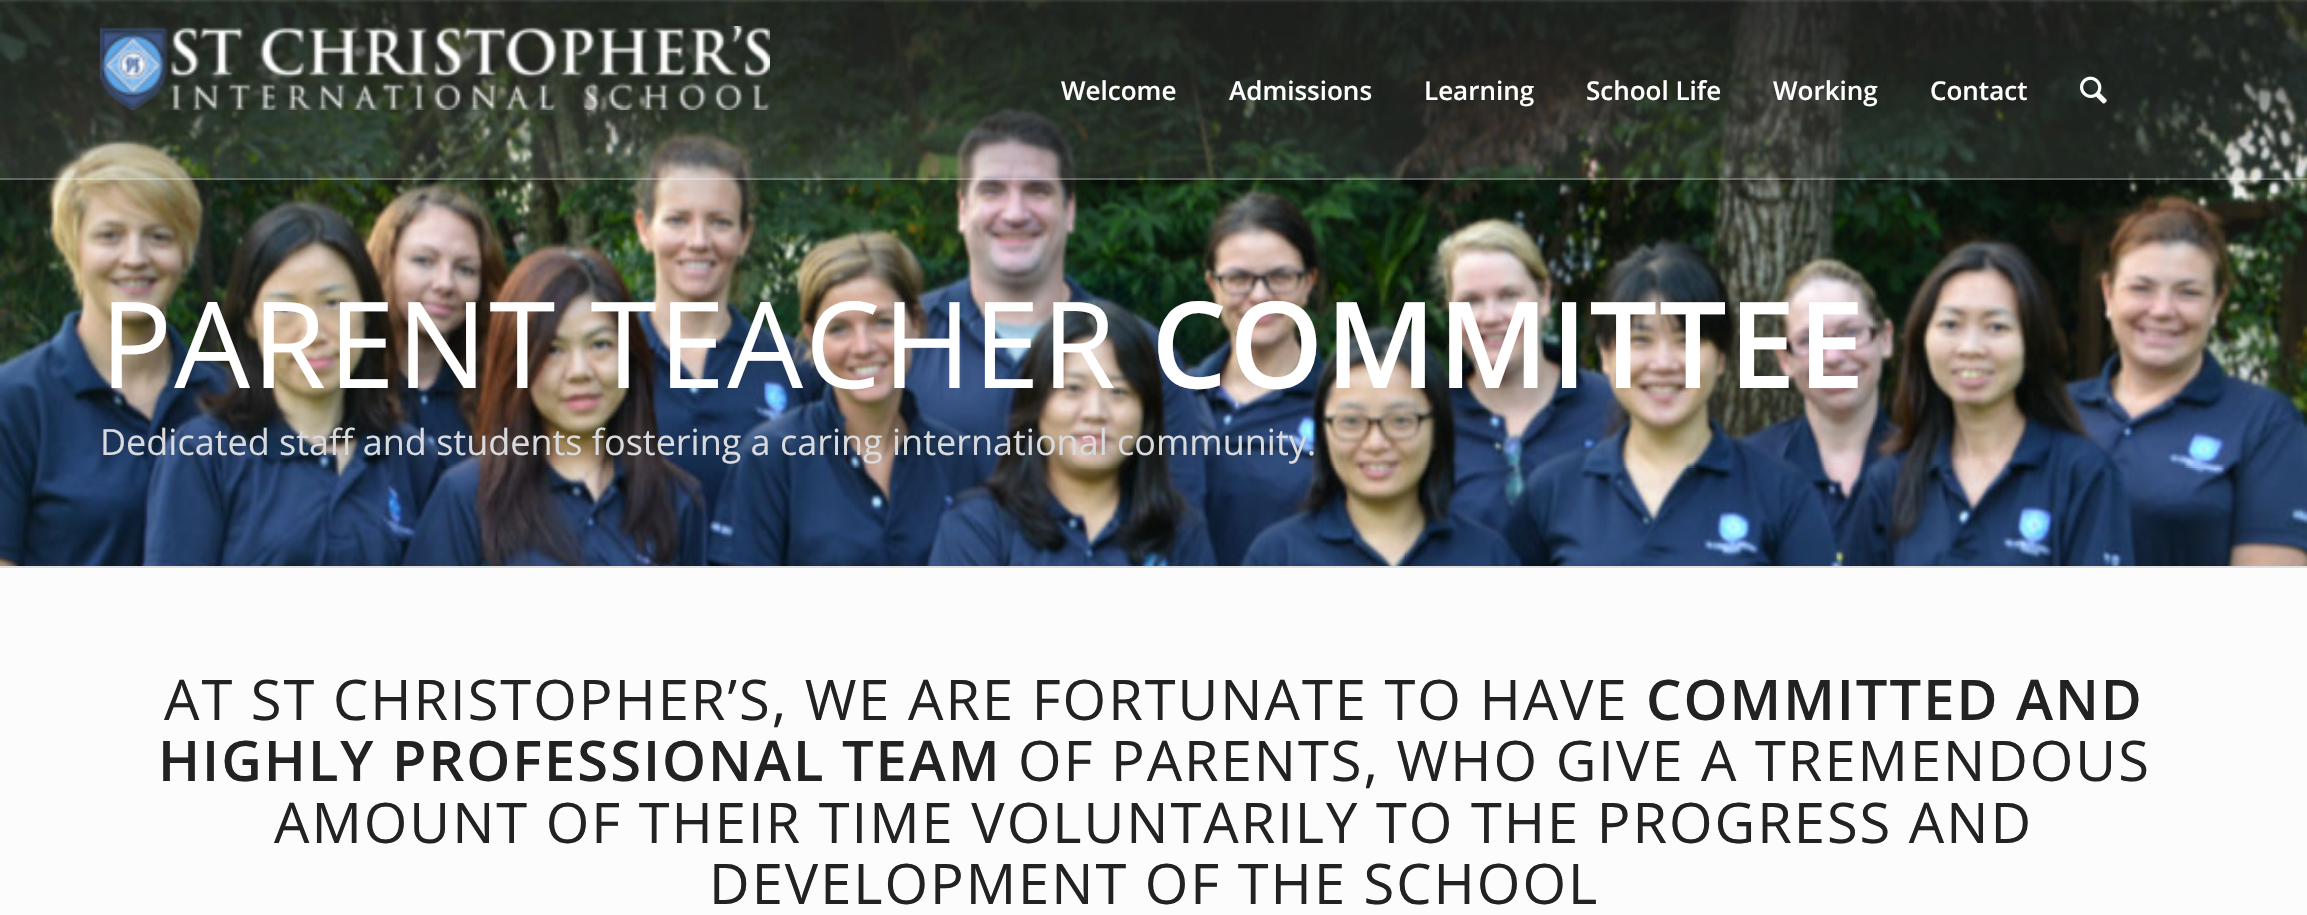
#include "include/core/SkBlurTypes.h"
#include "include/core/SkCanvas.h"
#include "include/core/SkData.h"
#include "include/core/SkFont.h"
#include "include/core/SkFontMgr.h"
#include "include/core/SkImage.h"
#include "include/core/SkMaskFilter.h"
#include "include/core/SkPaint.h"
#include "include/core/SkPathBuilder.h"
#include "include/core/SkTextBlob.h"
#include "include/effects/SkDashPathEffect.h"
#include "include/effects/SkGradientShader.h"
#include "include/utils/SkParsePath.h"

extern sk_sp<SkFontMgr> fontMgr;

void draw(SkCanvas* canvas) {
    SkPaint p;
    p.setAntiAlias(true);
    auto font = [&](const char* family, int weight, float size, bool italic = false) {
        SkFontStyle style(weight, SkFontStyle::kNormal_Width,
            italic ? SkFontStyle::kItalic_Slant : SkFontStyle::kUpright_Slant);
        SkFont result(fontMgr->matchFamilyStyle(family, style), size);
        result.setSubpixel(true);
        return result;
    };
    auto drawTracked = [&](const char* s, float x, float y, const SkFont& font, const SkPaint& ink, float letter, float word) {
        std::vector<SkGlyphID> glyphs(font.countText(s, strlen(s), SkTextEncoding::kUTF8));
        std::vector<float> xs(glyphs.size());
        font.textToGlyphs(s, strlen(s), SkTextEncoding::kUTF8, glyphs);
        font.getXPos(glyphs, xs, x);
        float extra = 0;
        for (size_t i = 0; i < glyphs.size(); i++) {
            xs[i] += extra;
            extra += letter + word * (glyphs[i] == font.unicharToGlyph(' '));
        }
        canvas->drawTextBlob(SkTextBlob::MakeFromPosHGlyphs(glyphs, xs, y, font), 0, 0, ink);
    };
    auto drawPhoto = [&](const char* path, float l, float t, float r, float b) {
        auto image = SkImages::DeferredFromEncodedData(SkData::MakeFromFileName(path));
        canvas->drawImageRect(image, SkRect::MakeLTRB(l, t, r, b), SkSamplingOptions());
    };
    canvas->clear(0xFFFFFFFF);
    drawPhoto("media/3.png", 0, 0, 2307, 566);
    p.setColor(0x1AFFFFFF);
    canvas->drawRect(SkRect::MakeLTRB(0, 0, 2307, 180), p);
    p.setColor(0x40FFFFFF);
    canvas->drawRect(SkRect::MakeLTRB(0, 178, 2307, 180), p);
    drawPhoto("media/1.png", 100, 26, 770, 110);
    auto font1 = font("Open Sans", 600, 26);
    p.setColor(0xFFFFFFFF);
    {
        const struct { const char* s; float x, y; } items[] = {
            {"Welcome", 1061, 100},
            {"Admissions", 1229, 100},
            {"Learning", 1424, 100},
            {"School Life", 1586, 100},
            {"Working", 1773, 100},
            {"Contact", 1930, 100},
        };
        for (auto [s, x, y] : items) {
            canvas->drawString(s, x, y, font1, p);
        }
    }
    drawPhoto("media/2.png", 2080, 76, 2107, 104);
    auto font2 = font("Open Sans", 400, 120);
    drawTracked("PARENT TEACHER", 100, 388, font2, p, 2, 0);
    auto font3 = font("Open Sans", 600, 120);
    drawTracked("COMMITTEE", 1151, 388, font3, p, 2, 0);
    auto font4 = font("Open Sans", 400, 36);
    p.setColor(0xFFD8DADD);
    canvas->drawString("Dedicated staff and students fostering a caring international community.", 100, 455, font4, p);
    p.setColor(0xFFFCFCFC);
    canvas->drawRect(SkRect::MakeLTRB(0, 568, 2307, 915), p);
    p.setColor(0xFFE1E1E1);
    canvas->drawRect(SkRect::MakeLTRB(0, 566, 2307, 568), p);
    auto font5 = font("Open Sans", 400, 56);
    p.setColor(0xFF222222);
    drawTracked("AT ST CHRISTOPHER’S, WE ARE FORTUNATE TO HAVE", 164, 720, font5, p, 2, 0);
    auto font6 = font("Open Sans", 600, 56);
    drawTracked("COMMITTED AND", 1646, 720, font6, p, 2, 0);
    drawTracked("HIGHLY PROFESSIONAL TEAM", 158, 781, font6, p, 2, 0);
    {
        const struct { const char* s; float x, y; } items[] = {
            {"OF PARENTS, WHO GIVE A TREMENDOUS", 1018, 781},
            {"AMOUNT OF THEIR TIME VOLUNTARILY TO THE PROGRESS AND", 274, 843},
            {"DEVELOPMENT OF THE SCHOOL", 709, 904},
        };
        for (auto [s, x, y] : items) {
            drawTracked(s, x, y, font5, p, 2, 0);
        }
    }
}
